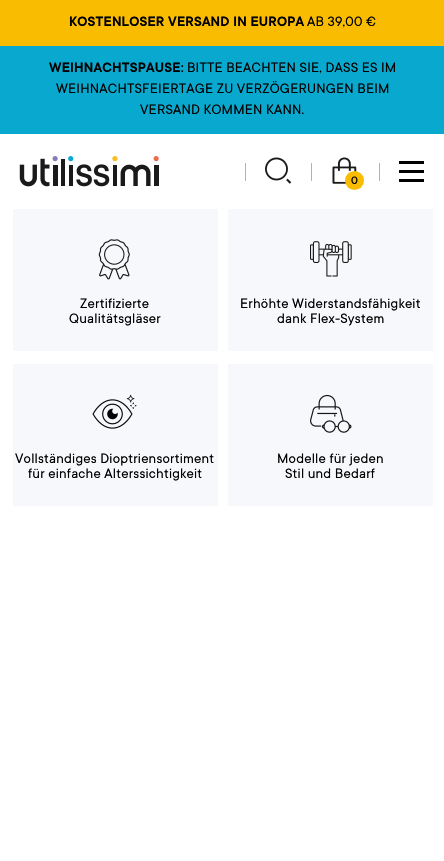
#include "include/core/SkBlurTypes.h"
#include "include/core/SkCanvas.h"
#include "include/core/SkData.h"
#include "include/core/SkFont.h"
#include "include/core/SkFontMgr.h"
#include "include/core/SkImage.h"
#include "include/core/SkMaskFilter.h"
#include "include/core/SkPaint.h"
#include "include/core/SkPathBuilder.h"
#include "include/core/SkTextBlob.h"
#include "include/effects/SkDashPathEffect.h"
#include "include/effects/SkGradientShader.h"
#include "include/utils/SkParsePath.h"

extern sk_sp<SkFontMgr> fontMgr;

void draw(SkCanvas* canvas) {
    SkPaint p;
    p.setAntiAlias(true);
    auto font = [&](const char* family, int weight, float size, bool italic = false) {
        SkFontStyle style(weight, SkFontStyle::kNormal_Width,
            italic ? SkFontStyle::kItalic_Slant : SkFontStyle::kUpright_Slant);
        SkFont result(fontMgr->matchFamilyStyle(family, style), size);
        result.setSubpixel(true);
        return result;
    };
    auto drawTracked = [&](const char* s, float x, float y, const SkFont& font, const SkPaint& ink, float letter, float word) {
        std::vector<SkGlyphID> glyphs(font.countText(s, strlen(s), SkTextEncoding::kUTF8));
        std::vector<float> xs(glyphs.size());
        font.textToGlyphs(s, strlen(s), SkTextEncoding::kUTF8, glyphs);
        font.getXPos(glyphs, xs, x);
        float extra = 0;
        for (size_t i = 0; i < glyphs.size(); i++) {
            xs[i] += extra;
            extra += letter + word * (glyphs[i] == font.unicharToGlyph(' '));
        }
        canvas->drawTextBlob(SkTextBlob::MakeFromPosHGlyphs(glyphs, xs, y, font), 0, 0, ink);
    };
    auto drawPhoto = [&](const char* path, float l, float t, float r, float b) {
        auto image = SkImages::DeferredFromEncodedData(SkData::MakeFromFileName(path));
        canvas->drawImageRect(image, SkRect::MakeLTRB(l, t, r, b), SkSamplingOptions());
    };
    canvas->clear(0xFFFFFFFF);
    p.setColor(0xFFF9BC00);
    canvas->drawRect(SkRect::MakeLTRB(0, 0, 444, 46), p);
    auto font1 = font("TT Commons", 600, 15);
    p.setColor(0xFF000000);
    drawTracked("KOSTENLOSER VERSAND IN EUROPA", 69, 26, font1, p, 0.2f, 0);
    auto font2 = font("TT Commons", 400, 15);
    drawTracked("AB 39,00 €", 307, 26, font2, p, 0.2f, 0);
    p.setColor(0xFF09A9CF);
    canvas->drawRect(SkRect::MakeLTRB(0, 46, 444, 134), p);
    p.setColor(0xFF000000);
    drawTracked("WEIHNACHTSPAUSE:", 49, 72, font1, p, 0.2f, 0);
    {
        const struct { const char* s; float x, y; } items[] = {
            {"BITTE BEACHTEN SIE, DASS ES IM", 187, 72},
            {"WEIHNACHTSFEIERTAGE ZU VERZÖGERUNGEN BEIM", 56, 93},
            {"VERSAND KOMMEN KANN.", 140, 114},
        };
        for (auto [s, x, y] : items) {
            drawTracked(s, x, y, font2, p, 0.2f, 0);
        }
    }
    drawPhoto("media/1.png", 19, 156, 159, 187);
    p.setColor(0xFFB3B3B3);
    canvas->drawRect(SkRect::MakeLTRB(245, 163, 246, 181), p);
    drawPhoto("media/2.png", 265, 157, 292, 184);
    canvas->drawRect(SkRect::MakeLTRB(311, 163, 312, 181), p);
    drawPhoto("media/3.png", 332, 157, 357, 184);
    p.setColor(0xFFF9BC00);
    canvas->drawCircle(354.5f, 180.5f, 9.5f, p);
    auto font3 = font("TT Commons", 500, 12);
    p.setColor(0xFF000000);
    drawTracked("0", 351, 184, font3, p, 0.2f, 0);
    {
        const struct { float l, t, r, b; SkColor color; } items[] = {
            {379, 163, 380, 181, 0xFFB3B3B3},
            {399, 161, 424, 164, 0xFF000000},
            {399, 170, 424, 173, 0xFF000000},
            {399, 179, 424, 182, 0xFF000000},
            {13, 209, 218, 351, 0xFFF6F8FB},
        };
        for (auto [l, t, r, b, color] : items) {
            p.setColor(color);
            canvas->drawRect(SkRect::MakeLTRB(l, t, r, b), p);
        }
    }
    drawPhoto("media/4.png", 98, 239, 130, 280);
    p.setColor(0xFF000000);
    drawTracked("Zertifizierte", 80, 308, font2, p, 0.2f, 0);
    drawTracked("Qualitätsgläser", 69, 323, font2, p, 0.2f, 0);
    p.setColor(0xFFF6F8FB);
    canvas->drawRect(SkRect::MakeLTRB(228, 209, 433, 351), p);
    drawPhoto("media/5.png", 310, 241, 352, 277);
    p.setColor(0xFF000000);
    drawTracked("Erhöhte Widerstandsfähigkeit", 240, 308, font2, p, 0.2f, 0);
    drawTracked("dank Flex-System", 277, 323, font2, p, 0.2f, 0);
    p.setColor(0xFFF6F8FB);
    canvas->drawRect(SkRect::MakeLTRB(13, 364, 218, 506), p);
    drawPhoto("media/6.png", 92, 394, 137, 429);
    p.setColor(0xFF000000);
    drawTracked("Vollständiges Dioptriensortiment", 15, 463, font2, p, 0.2f, 0);
    drawTracked("für einfache Alterssichtigkeit", 28, 478, font2, p, 0.2f, 0);
    p.setColor(0xFFF6F8FB);
    canvas->drawRect(SkRect::MakeLTRB(228, 364, 433, 506), p);
    drawPhoto("media/7.png", 310, 394, 352, 433);
    p.setColor(0xFF000000);
    drawTracked("Modelle für jeden", 277, 463, font2, p, 0.2f, 0);
    drawTracked("Stil und Bedarf", 285, 478, font2, p, 0.2f, 0);
}
